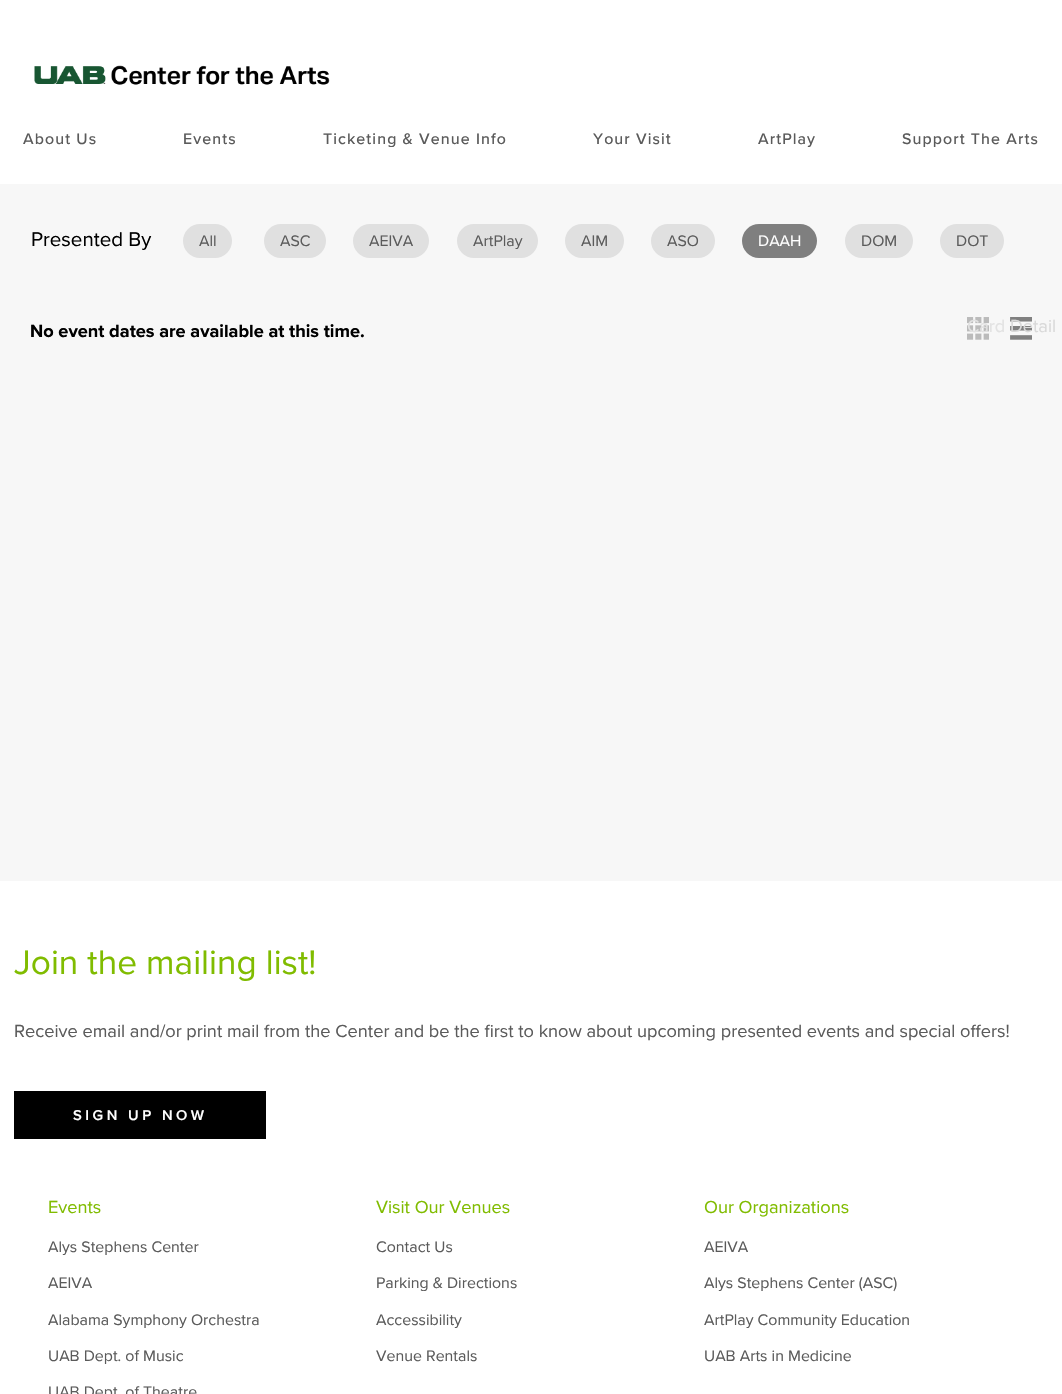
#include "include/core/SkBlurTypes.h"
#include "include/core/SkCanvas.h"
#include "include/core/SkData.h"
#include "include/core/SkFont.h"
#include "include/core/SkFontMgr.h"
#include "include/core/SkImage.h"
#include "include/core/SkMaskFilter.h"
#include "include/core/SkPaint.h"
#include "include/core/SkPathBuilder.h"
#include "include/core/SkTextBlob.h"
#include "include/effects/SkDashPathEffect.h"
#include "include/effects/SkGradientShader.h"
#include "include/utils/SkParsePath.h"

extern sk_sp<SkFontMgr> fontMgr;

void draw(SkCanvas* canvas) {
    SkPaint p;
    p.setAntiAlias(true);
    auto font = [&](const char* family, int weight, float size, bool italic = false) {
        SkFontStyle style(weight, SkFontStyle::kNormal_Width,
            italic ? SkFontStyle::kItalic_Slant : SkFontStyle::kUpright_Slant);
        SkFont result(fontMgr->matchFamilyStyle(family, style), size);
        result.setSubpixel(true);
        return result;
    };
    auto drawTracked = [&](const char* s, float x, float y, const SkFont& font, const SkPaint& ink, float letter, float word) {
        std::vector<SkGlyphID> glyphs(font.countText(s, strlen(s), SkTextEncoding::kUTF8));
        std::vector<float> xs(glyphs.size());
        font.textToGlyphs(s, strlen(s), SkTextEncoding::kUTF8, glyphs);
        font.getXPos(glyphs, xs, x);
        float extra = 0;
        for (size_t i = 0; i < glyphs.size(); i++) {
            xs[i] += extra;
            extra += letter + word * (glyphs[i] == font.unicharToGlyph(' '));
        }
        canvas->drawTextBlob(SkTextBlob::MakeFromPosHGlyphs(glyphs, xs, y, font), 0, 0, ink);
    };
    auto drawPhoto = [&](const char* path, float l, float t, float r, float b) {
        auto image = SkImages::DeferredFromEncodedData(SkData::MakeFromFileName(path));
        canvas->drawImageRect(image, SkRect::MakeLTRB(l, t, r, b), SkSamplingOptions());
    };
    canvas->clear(0xFFFFFFFF);
    drawPhoto("media/1.png", 34, 65, 330, 85);
    auto font1 = font("Proxima Nova", 500, 15.9f);
    p.setColor(0xFF5B5B5B);
    {
        const struct { const char* s; float x, y; } items[] = {
            {"About Us", 23, 144},
            {"Events", 183, 144},
            {"Ticketing & Venue Info", 323, 144},
            {"Your Visit", 593, 144},
            {"ArtPlay", 758, 144},
            {"Support The Arts", 902, 144},
        };
        for (auto [s, x, y] : items) {
            drawTracked(s, x, y, font1, p, 1.1f, 0);
        }
    }
    p.setColor(0xFFF7F7F7);
    canvas->drawRect(SkRect::MakeLTRB(0, 184, 1062, 881), p);
    auto font2 = font("Proxima Nova", 400, 20.5f);
    p.setColor(0xFF000000);
    canvas->drawString("Presented By", 31, 246, font2, p);
    p.setColor(0xFFE0E0E0);
    canvas->drawRoundRect(SkRect::MakeLTRB(183, 224, 232, 258), 17, 17, p);
    auto font3 = font("Proxima Nova", 400, 15.9f);
    p.setColor(0xFF5B5B5B);
    canvas->drawString("All", 199, 246, font3, p);
    p.setColor(0xFFE0E0E0);
    canvas->drawRoundRect(SkRect::MakeLTRB(264, 224, 326, 258), 17, 17, p);
    p.setColor(0xFF5B5B5B);
    canvas->drawString("ASC", 280, 246, font3, p);
    p.setColor(0xFFE0E0E0);
    canvas->drawRoundRect(SkRect::MakeLTRB(353, 224, 429, 258), 17, 17, p);
    p.setColor(0xFF5B5B5B);
    canvas->drawString("AEIVA", 369, 246, font3, p);
    p.setColor(0xFFE0E0E0);
    canvas->drawRoundRect(SkRect::MakeLTRB(457, 224, 538, 258), 17, 17, p);
    p.setColor(0xFF5B5B5B);
    canvas->drawString("ArtPlay", 473, 246, font3, p);
    p.setColor(0xFFE0E0E0);
    canvas->drawRoundRect(SkRect::MakeLTRB(565, 224, 624, 258), 17, 17, p);
    p.setColor(0xFF5B5B5B);
    canvas->drawString("AIM", 581, 246, font3, p);
    p.setColor(0xFFE0E0E0);
    canvas->drawRoundRect(SkRect::MakeLTRB(651, 224, 715, 258), 17, 17, p);
    p.setColor(0xFF5B5B5B);
    canvas->drawString("ASO", 667, 246, font3, p);
    p.setColor(0xFF7F7F7F);
    canvas->drawRoundRect(SkRect::MakeLTRB(742, 224, 817, 258), 17, 17, p);
    p.setColor(0xFFFFFFFF);
    canvas->drawString("DAAH", 758, 246, font3, p);
    p.setColor(0xFFE0E0E0);
    canvas->drawRoundRect(SkRect::MakeLTRB(845, 224, 913, 258), 17, 17, p);
    p.setColor(0xFF5B5B5B);
    canvas->drawString("DOM", 861, 246, font3, p);
    p.setColor(0xFFE0E0E0);
    canvas->drawRoundRect(SkRect::MakeLTRB(940, 224, 1004, 258), 17, 17, p);
    p.setColor(0xFF5B5B5B);
    canvas->drawString("DOT", 956, 246, font3, p);
    drawPhoto("media/2.png", 967, 317, 989, 340);
    auto font4 = font("Proxima Nova", 400, 18.18f);
    p.setColor(0xFFE2E2E2);
    canvas->drawString("Card", 967, 332, font4, p);
    drawPhoto("media/3.png", 1010, 317, 1032, 340);
    p.setColor(0xFFD9D9D9);
    canvas->drawString("Detail", 1010, 332, font4, p);
    auto font5 = font("Proxima Nova", 700, 18.18f);
    p.setColor(0xFF000000);
    canvas->drawString("No event dates are available at this time.", 30, 337, font5, p);
    auto font6 = font("Proxima Nova", 400, 35.25f);
    p.setColor(0xFF80BC00);
    canvas->drawString("Join the mailing list!", 14, 974, font6, p);
    p.setColor(0xFF5B5B5B);
    canvas->drawString("Receive email and/or print mail from the Center and be the first to know about upcoming presented events and special offers!", 14, 1037, font4, p);
    p.setColor(0xFF000000);
    canvas->drawRect(SkRect::MakeLTRB(14, 1091, 266, 1139), p);
    auto font7 = font("Proxima Nova", 600, 14.75f);
    p.setColor(0xFFFFFFFF);
    drawTracked("SIGN UP NOW", 73, 1120, font7, p, 3.5f, 0);
    p.setColor(0xFF80BC00);
    canvas->drawString("Events", 48, 1213, font4, p);
    p.setColor(0xFF5B5B5B);
    {
        const struct { const char* s; float x, y; } items[] = {
            {"Alys Stephens Center", 48, 1252},
            {"AEIVA", 48, 1288},
            {"Alabama Symphony Orchestra", 48, 1325},
            {"UAB Dept. of Music", 48, 1361},
            {"UAB Dept. of Theatre", 48, 1397},
        };
        for (auto [s, x, y] : items) {
            canvas->drawString(s, x, y, font3, p);
        }
    }
    p.setColor(0xFF80BC00);
    canvas->drawString("Visit Our Venues", 376, 1213, font4, p);
    p.setColor(0xFF5B5B5B);
    {
        const struct { const char* s; float x, y; } items[] = {
            {"Contact Us", 376, 1252},
            {"Parking & Directions", 376, 1288},
            {"Accessibility", 376, 1325},
            {"Venue Rentals", 376, 1361},
        };
        for (auto [s, x, y] : items) {
            canvas->drawString(s, x, y, font3, p);
        }
    }
    p.setColor(0xFF80BC00);
    canvas->drawString("Our Organizations", 704, 1213, font4, p);
    p.setColor(0xFF5B5B5B);
    {
        const struct { const char* s; float x, y; } items[] = {
            {"AEIVA", 704, 1252},
            {"Alys Stephens Center (ASC)", 704, 1288},
            {"ArtPlay Community Education", 704, 1325},
            {"UAB Arts in Medicine", 704, 1361},
        };
        for (auto [s, x, y] : items) {
            canvas->drawString(s, x, y, font3, p);
        }
    }
}
